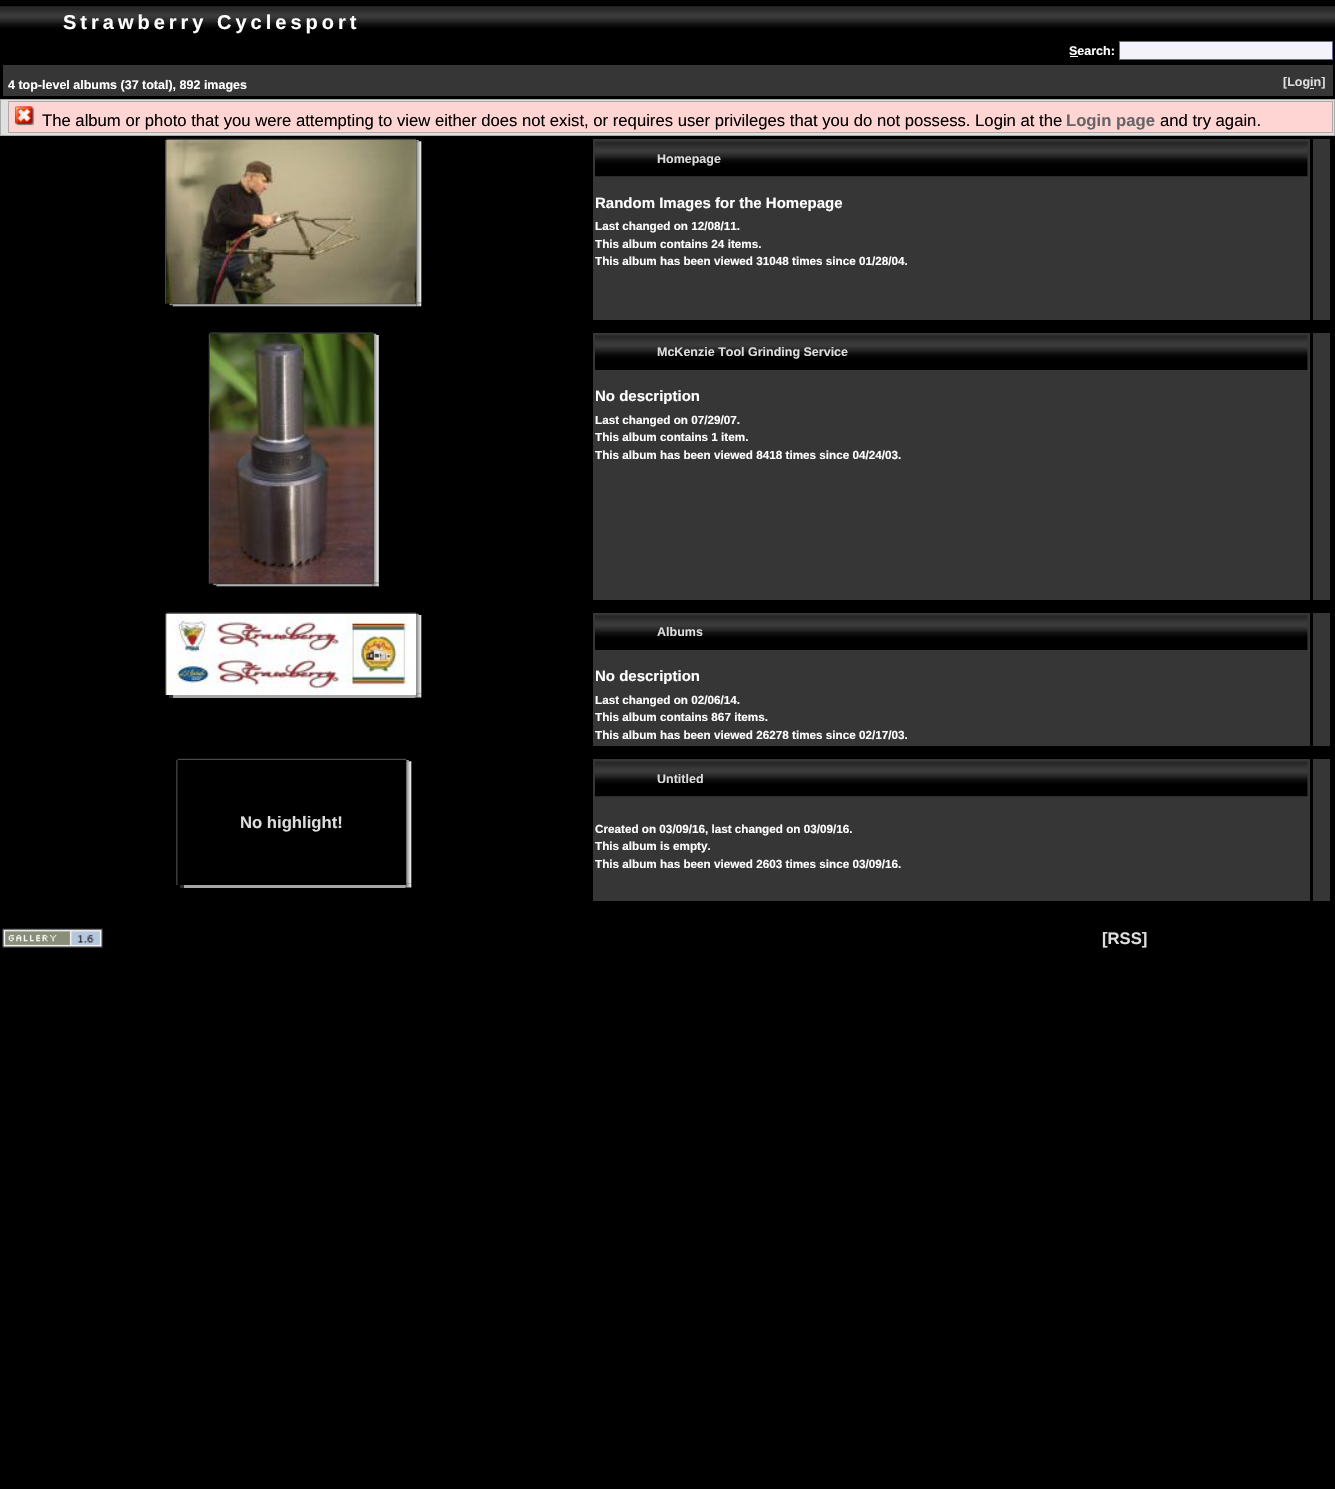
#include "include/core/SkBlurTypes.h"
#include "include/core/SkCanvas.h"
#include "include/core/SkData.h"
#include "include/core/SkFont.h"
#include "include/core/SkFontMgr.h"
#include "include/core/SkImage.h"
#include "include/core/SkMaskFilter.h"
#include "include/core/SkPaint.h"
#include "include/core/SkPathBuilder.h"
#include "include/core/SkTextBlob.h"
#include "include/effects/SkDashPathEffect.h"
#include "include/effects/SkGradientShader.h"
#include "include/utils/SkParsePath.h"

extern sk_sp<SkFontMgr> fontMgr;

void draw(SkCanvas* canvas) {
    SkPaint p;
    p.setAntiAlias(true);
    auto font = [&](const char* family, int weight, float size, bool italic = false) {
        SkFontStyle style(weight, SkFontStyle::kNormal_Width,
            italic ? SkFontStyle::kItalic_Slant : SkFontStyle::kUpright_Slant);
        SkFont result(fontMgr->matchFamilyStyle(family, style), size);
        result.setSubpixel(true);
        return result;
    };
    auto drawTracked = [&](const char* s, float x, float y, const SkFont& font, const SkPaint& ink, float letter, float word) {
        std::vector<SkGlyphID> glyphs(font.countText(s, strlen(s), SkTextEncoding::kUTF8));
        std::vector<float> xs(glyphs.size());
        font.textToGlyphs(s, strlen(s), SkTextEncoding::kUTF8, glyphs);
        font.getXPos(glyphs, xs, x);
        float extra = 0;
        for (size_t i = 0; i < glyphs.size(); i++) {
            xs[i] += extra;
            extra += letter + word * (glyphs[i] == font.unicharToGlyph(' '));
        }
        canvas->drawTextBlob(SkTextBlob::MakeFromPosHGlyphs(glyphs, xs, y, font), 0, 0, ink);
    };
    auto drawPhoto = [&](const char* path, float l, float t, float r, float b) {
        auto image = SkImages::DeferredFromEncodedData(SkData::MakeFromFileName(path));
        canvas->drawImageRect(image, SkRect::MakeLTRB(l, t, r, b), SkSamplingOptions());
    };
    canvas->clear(0xFF000000);
    drawPhoto("media/1.png", 0, 6, 1335, 28);
    auto font1 = font("Liberation Sans", 700, 20);
    p.setColor(0xFFFFFFFF);
    drawTracked("Strawberry Cyclesport", 63, 29, font1, p, 4, 0);
    auto font2 = font("Liberation Sans", 700, 12.5f);
    canvas->drawString("Search:", 1069, 55, font2, p);
    canvas->drawRect(SkRect::MakeLTRB(1070, 56, 1078, 57), p);
    p.setColor(0xFFF3F3F9);
    canvas->drawRect(SkRect::MakeLTRB(1119.5f, 41.5f, 1332.5f, 59.5f), p);
    p.setStyle(SkPaint::kStroke_Style);
    p.setStrokeWidth(1);
    p.setColor(0xFF666699);
    canvas->drawRect(SkRect::MakeLTRB(1119.5f, 41.5f, 1332.5f, 59.5f), p);
    p.setStyle(SkPaint::kFill_Style);
    p.setColor(0xFF363636);
    canvas->drawRect(SkRect::MakeLTRB(3, 65, 1333, 96), p);
    p.setColor(0xFFFFFFFF);
    canvas->drawString("4 top-level albums (37 total), 892 images", 8, 89, font2, p);
    p.setColor(0xFFDDDDDD);
    canvas->drawString("[Login]", 1283, 86, font2, p);
    canvas->drawRect(SkRect::MakeLTRB(1310, 88, 1314, 89), p);
    p.setColor(0xFFE0E0E0);
    canvas->drawRect(SkRect::MakeLTRB(0.5f, 99.5f, 1334.5f, 135.5f), p);
    p.setStyle(SkPaint::kStroke_Style);
    p.setColor(0xFFAAAAAA);
    canvas->drawRect(SkRect::MakeLTRB(0.5f, 99.5f, 1334.5f, 135.5f), p);
    p.setStyle(SkPaint::kFill_Style);
    p.setColor(0xFFFFD5D4);
    canvas->drawRect(SkRect::MakeLTRB(8.5f, 101.5f, 1332.5f, 132.5f), p);
    p.setStyle(SkPaint::kStroke_Style);
    p.setColor(0xFFAAAAAA);
    canvas->drawRect(SkRect::MakeLTRB(8.5f, 101.5f, 1332.5f, 132.5f), p);
    drawPhoto("media/2.png", 15, 106, 34, 126);
    auto font3 = font("Liberation Sans", 400, 16.67f);
    p.setStyle(SkPaint::kFill_Style);
    p.setColor(0xFF000000);
    canvas->drawString("The album or photo that you were attempting to view either does not exist, or requires user privileges that you do not possess. Login at the", 42, 126, font3, p);
    auto font4 = font("Liberation Sans", 700, 16.67f);
    p.setColor(0xFF666666);
    canvas->drawString("Login page", 1066, 126, font4, p);
    p.setColor(0xFF000000);
    canvas->drawString("and try again.", 1160, 126, font3, p);
    drawPhoto("media/4.png", 167, 138, 415, 140);
    drawPhoto("media/3.png", 166, 138, 168, 140);
    drawPhoto("media/5.png", 415, 138, 417, 140);
    drawPhoto("media/7.png", 165, 141, 167, 303);
    drawPhoto("media/6.png", 165, 140, 167, 142);
    drawPhoto("media/8.png", 165, 302, 167, 304);
    drawPhoto("media/11.png", 416, 141, 422, 303);
    drawPhoto("media/14.png", 172, 303, 415, 307);
    drawPhoto("media/9.png", 166, 140, 417, 304);
    drawPhoto("media/10.png", 416, 140, 419, 142);
    drawPhoto("media/12.png", 416, 302, 422, 304);
    drawPhoto("media/13.png", 166, 303, 173, 307);
    drawPhoto("media/15.png", 415, 303, 417, 307);
    drawPhoto("media/16.png", 416, 303, 422, 307);
    p.setColor(0xFF363636);
    canvas->drawRect(SkRect::MakeLTRB(593, 139, 1310, 320), p);
    drawPhoto("media/17.png", 595, 141, 1308, 177);
    p.setColor(0xFFDDDDDD);
    canvas->drawString("Homepage", 657, 163, font2, p);
    auto font5 = font("Liberation Sans", 700, 15);
    p.setColor(0xFFFFFFFF);
    canvas->drawString("Random Images for the Homepage", 595, 208, font5, p);
    auto font6 = font("Liberation Sans", 700, 11.7f);
    {
        const struct { const char* s; float x, y; } items[] = {
            {"Last changed on 12/08/11.", 595, 230},
            {"This album contains 24 items.", 595, 248},
            {"This album has been viewed 31048 times since 01/28/04.", 595, 265},
        };
        for (auto [s, x, y] : items) {
            canvas->drawString(s, x, y, font6, p);
        }
    }
    p.setColor(0xFF363636);
    canvas->drawRect(SkRect::MakeLTRB(1313, 139, 1330, 320), p);
    drawPhoto("media/19.png", 211, 332, 373, 334);
    drawPhoto("media/18.png", 210, 332, 212, 334);
    drawPhoto("media/20.png", 372, 332, 374, 334);
    drawPhoto("media/21.png", 208, 333, 210, 335);
    drawPhoto("media/22.png", 208, 335, 210, 583);
    drawPhoto("media/23.png", 208, 582, 210, 584);
    drawPhoto("media/26.png", 373, 335, 379, 583);
    drawPhoto("media/29.png", 216, 583, 373, 587);
    drawPhoto("media/24.png", 210, 333, 374, 584);
    drawPhoto("media/25.png", 373, 333, 377, 335);
    drawPhoto("media/27.png", 373, 582, 379, 584);
    drawPhoto("media/28.png", 210, 583, 217, 586);
    drawPhoto("media/30.png", 372, 583, 374, 587);
    drawPhoto("media/31.png", 373, 583, 379, 587);
    canvas->drawRect(SkRect::MakeLTRB(593, 333, 1310, 600), p);
    drawPhoto("media/32.png", 595, 335, 1308, 370);
    p.setColor(0xFFDDDDDD);
    canvas->drawString("McKenzie Tool Grinding Service", 657, 356, font2, p);
    p.setColor(0xFFFFFFFF);
    canvas->drawString("No description", 595, 401, font5, p);
    {
        const struct { const char* s; float x, y; } items[] = {
            {"Last changed on 07/29/07.", 595, 424},
            {"This album contains 1 item.", 595, 441},
            {"This album has been viewed 8418 times since 04/24/03.", 595, 459},
        };
        for (auto [s, x, y] : items) {
            canvas->drawString(s, x, y, font6, p);
        }
    }
    p.setColor(0xFF363636);
    canvas->drawRect(SkRect::MakeLTRB(1313, 333, 1330, 600), p);
    drawPhoto("media/34.png", 167, 612, 415, 614);
    drawPhoto("media/33.png", 166, 612, 168, 614);
    drawPhoto("media/35.png", 415, 612, 417, 614);
    drawPhoto("media/36.png", 165, 613, 167, 615);
    drawPhoto("media/37.png", 165, 615, 167, 694);
    drawPhoto("media/38.png", 165, 693, 167, 695);
    drawPhoto("media/41.png", 416, 615, 422, 694);
    drawPhoto("media/39.png", 166, 613, 417, 695);
    drawPhoto("media/40.png", 416, 613, 419, 615);
    drawPhoto("media/42.png", 416, 693, 422, 695);
    p.setColor(0xFFA6A6A7);
    canvas->drawRect(SkRect::MakeLTRB(172, 695, 415, 698), p);
    p.setColor(0xFF2D2D2D);
    canvas->drawRect(SkRect::MakeLTRB(169, 695, 173, 698), p);
    drawPhoto("media/43.png", 415, 695, 417, 698);
    drawPhoto("media/44.png", 416, 695, 422, 698);
    p.setColor(0xFF363636);
    canvas->drawRect(SkRect::MakeLTRB(593, 613, 1310, 746), p);
    drawPhoto("media/45.png", 595, 615, 1308, 650);
    p.setColor(0xFFDDDDDD);
    canvas->drawString("Albums", 657, 636, font2, p);
    p.setColor(0xFFFFFFFF);
    canvas->drawString("No description", 595, 681, font5, p);
    {
        const struct { const char* s; float x, y; } items[] = {
            {"Last changed on 02/06/14.", 595, 704},
            {"This album contains 867 items.", 595, 721},
            {"This album has been viewed 26278 times since 02/17/03.", 595, 739},
        };
        for (auto [s, x, y] : items) {
            canvas->drawString(s, x, y, font6, p);
        }
    }
    p.setColor(0xFF363636);
    canvas->drawRect(SkRect::MakeLTRB(1313, 613, 1330, 746), p);
    drawPhoto("media/47.png", 178, 758, 405, 760);
    drawPhoto("media/46.png", 177, 758, 179, 760);
    drawPhoto("media/5.png", 405, 758, 407, 760);
    drawPhoto("media/49.png", 176, 761, 178, 884);
    drawPhoto("media/48.png", 176, 760, 178, 762);
    drawPhoto("media/50.png", 176, 883, 178, 885);
    p.setColor(0xFFDDDDDD);
    canvas->drawString("No highlight!", 240, 828, font4, p);
    drawPhoto("media/52.png", 406, 761, 412, 884);
    drawPhoto("media/51.png", 406, 760, 409, 762);
    drawPhoto("media/53.png", 406, 883, 412, 885);
    p.setColor(0xFFA6A6A7);
    canvas->drawRect(SkRect::MakeLTRB(183, 885, 405, 888), p);
    p.setColor(0xFF2D2D2D);
    canvas->drawRect(SkRect::MakeLTRB(180, 885, 184, 888), p);
    drawPhoto("media/43.png", 405, 885, 407, 888);
    drawPhoto("media/44.png", 406, 885, 412, 888);
    p.setColor(0xFF363636);
    canvas->drawRect(SkRect::MakeLTRB(593, 759, 1310, 901), p);
    drawPhoto("media/54.png", 595, 761, 1308, 797);
    p.setColor(0xFFDDDDDD);
    canvas->drawString("Untitled", 657, 783, font2, p);
    p.setColor(0xFFFFFFFF);
    {
        const struct { const char* s; float x, y; } items[] = {
            {"Created on 03/09/16, last changed on 03/09/16.", 595, 833},
            {"This album is empty.", 595, 850},
            {"This album has been viewed 2603 times since 03/09/16.", 595, 868},
        };
        for (auto [s, x, y] : items) {
            canvas->drawString(s, x, y, font6, p);
        }
    }
    p.setColor(0xFF363636);
    canvas->drawRect(SkRect::MakeLTRB(1313, 759, 1330, 901), p);
    drawPhoto("media/55.png", 2, 928, 103, 948);
    p.setColor(0xFFDDDDDD);
    canvas->drawString("[RSS]", 1102, 944, font4, p);
}
